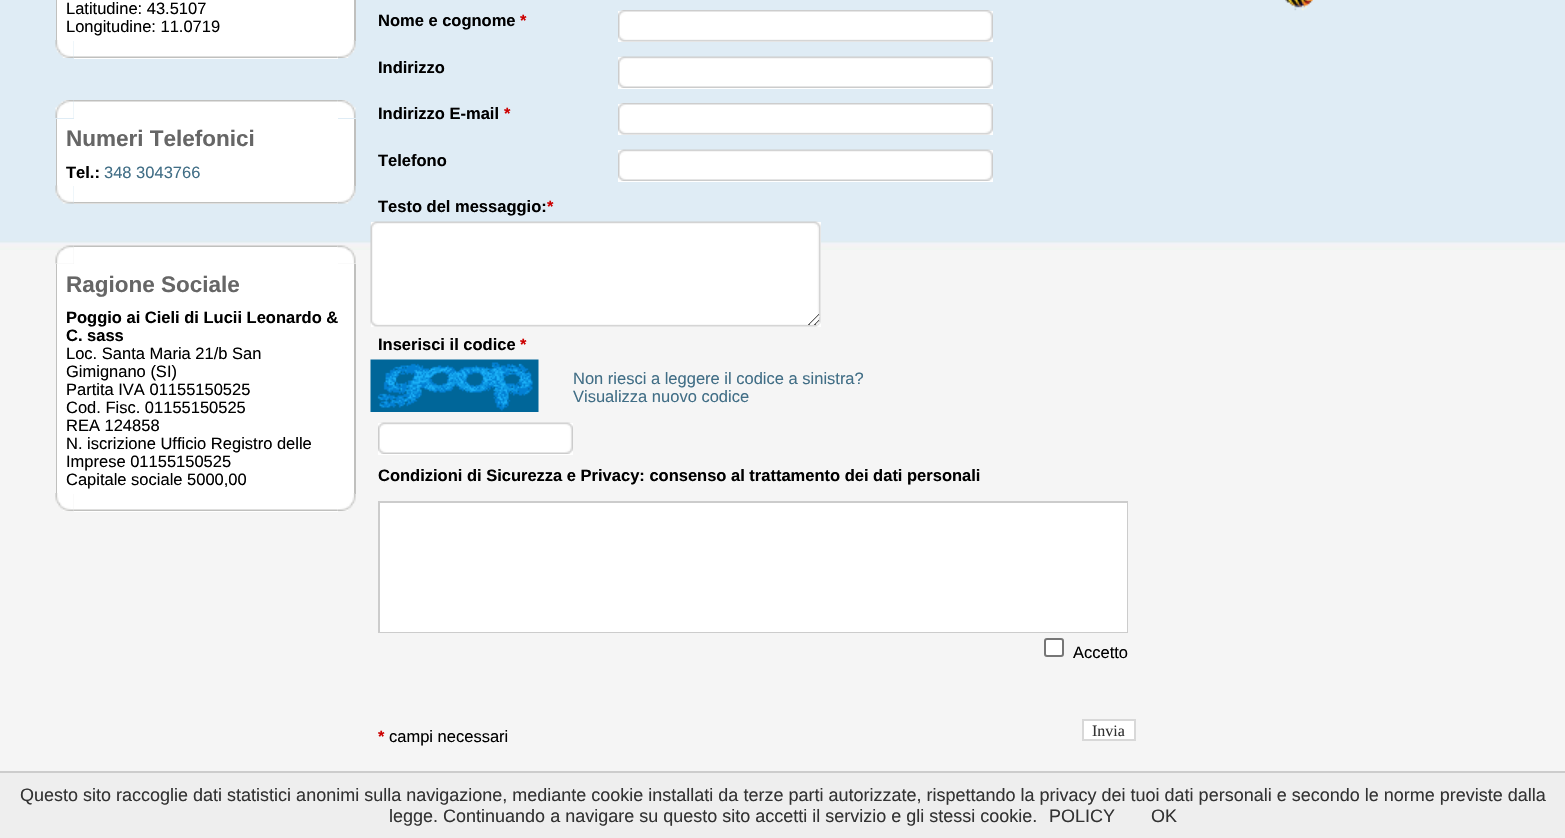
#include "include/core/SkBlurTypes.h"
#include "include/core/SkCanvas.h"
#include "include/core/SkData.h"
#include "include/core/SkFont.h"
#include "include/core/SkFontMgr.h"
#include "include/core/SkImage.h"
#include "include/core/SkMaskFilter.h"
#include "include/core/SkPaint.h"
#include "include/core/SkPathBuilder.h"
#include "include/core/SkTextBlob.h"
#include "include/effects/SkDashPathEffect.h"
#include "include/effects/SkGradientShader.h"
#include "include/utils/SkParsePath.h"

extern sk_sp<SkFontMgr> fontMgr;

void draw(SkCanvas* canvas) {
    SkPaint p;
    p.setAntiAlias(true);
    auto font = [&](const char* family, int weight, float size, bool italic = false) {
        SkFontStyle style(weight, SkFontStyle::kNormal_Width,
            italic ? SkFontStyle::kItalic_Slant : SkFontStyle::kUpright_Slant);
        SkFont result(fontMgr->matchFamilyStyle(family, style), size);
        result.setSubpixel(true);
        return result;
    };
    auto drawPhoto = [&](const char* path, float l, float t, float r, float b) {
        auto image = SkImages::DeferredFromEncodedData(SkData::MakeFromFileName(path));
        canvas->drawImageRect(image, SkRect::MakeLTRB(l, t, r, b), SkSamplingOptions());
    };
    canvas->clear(0xFFF5F5F5);
    drawPhoto("media/1.png", 0, 0, 1565, 250);
    p.setColor(0xFFC0C0BE);
    canvas->drawRect(SkRect::MakeLTRB(56, 0, 57, 41), p);
    p.setColor(0xFFFFFFFF);
    canvas->drawRect(SkRect::MakeLTRB(57, 0, 354, 41), p);
    auto font1 = font("Liberation Sans", 400, 16.5f);
    p.setColor(0xFF000000);
    canvas->drawString("Latitudine: 43.5107", 66, 14, font1, p);
    canvas->drawString("Longitudine: 11.0719", 66, 32, font1, p);
    p.setColor(0xFFC0C0BE);
    canvas->drawRect(SkRect::MakeLTRB(354, 0, 356, 41), p);
    p.setColor(0xFFFFFFFF);
    canvas->drawRect(SkRect::MakeLTRB(74, 41, 338, 59), p);
    drawPhoto("media/3.png", 73, 56, 338, 58);
    drawPhoto("media/2.png", 55, 40, 74, 58);
    drawPhoto("media/4.png", 337, 40, 356, 58);
    canvas->drawRect(SkRect::MakeLTRB(74, 101, 338, 119), p);
    drawPhoto("media/6.png", 73, 100, 338, 102);
    drawPhoto("media/5.png", 55, 100, 74, 118);
    drawPhoto("media/7.png", 337, 100, 356, 118);
    p.setColor(0xFFC0C0BE);
    canvas->drawRect(SkRect::MakeLTRB(56, 119, 57, 186), p);
    p.setColor(0xFFFFFFFF);
    canvas->drawRect(SkRect::MakeLTRB(57, 119, 354, 186), p);
    auto font2 = font("Liberation Sans", 700, 22.5f);
    p.setColor(0xFF666666);
    canvas->drawString("Numeri Telefonici", 66, 146, font2, p);
    auto font3 = font("Liberation Sans", 700, 16.5f);
    p.setColor(0xFF000000);
    canvas->drawString("Tel.:", 66, 178, font3, p);
    p.setColor(0xFF416E86);
    canvas->drawString("348 3043766", 104, 178, font1, p);
    p.setColor(0xFFC0C0BE);
    canvas->drawRect(SkRect::MakeLTRB(354, 119, 356, 186), p);
    p.setColor(0xFFFFFFFF);
    canvas->drawRect(SkRect::MakeLTRB(74, 186, 338, 204), p);
    drawPhoto("media/9.png", 73, 202, 338, 204);
    drawPhoto("media/8.png", 55, 185, 74, 204);
    drawPhoto("media/10.png", 337, 185, 356, 204);
    canvas->drawRect(SkRect::MakeLTRB(74, 246, 338, 264), p);
    drawPhoto("media/12.png", 73, 245, 338, 247);
    drawPhoto("media/11.png", 55, 245, 74, 264);
    drawPhoto("media/13.png", 337, 245, 356, 264);
    p.setColor(0xFFC0C0BE);
    canvas->drawRect(SkRect::MakeLTRB(56, 264, 57, 494), p);
    p.setColor(0xFFFFFFFF);
    canvas->drawRect(SkRect::MakeLTRB(57, 264, 354, 494), p);
    p.setColor(0xFF666666);
    canvas->drawString("Ragione Sociale", 66, 292, font2, p);
    p.setColor(0xFF000000);
    canvas->drawString("Poggio ai Cieli di Lucii Leonardo &", 66, 323, font3, p);
    canvas->drawString("C. sass", 66, 341, font3, p);
    {
        const struct { const char* s; float x, y; } items[] = {
            {"Loc. Santa Maria 21/b San", 66, 359},
            {"Gimignano (SI)", 66, 377},
            {"Partita IVA 01155150525", 66, 395},
            {"Cod. Fisc. 01155150525", 66, 413},
            {"REA 124858", 66, 431},
            {"N. iscrizione Ufficio Registro delle", 66, 449},
            {"Imprese 01155150525", 66, 467},
            {"Capitale sociale 5000,00", 66, 485},
        };
        for (auto [s, x, y] : items) {
            canvas->drawString(s, x, y, font1, p);
        }
    }
    p.setColor(0xFFC0C0BE);
    canvas->drawRect(SkRect::MakeLTRB(354, 264, 356, 494), p);
    p.setColor(0xFFFFFFFF);
    canvas->drawRect(SkRect::MakeLTRB(74, 494, 338, 512), p);
    drawPhoto("media/15.png", 73, 509, 338, 511);
    drawPhoto("media/14.png", 55, 493, 74, 511);
    drawPhoto("media/16.png", 337, 493, 356, 511);
    p.setColor(0xFF000000);
    canvas->drawString("Nome e cognome", 378, 26, font3, p);
    p.setColor(0xFFCC0000);
    canvas->drawString("*", 520, 26, font3, p);
    p.setColor(0xFFFFFFFF);
    canvas->drawRect(SkRect::MakeLTRB(618, 11, 993, 42), p);
    drawPhoto("media/17.png", 618, 10, 993, 42);
    p.setColor(0xFF000000);
    canvas->drawString("Indirizzo", 378, 73, font3, p);
    p.setColor(0xFFFFFFFF);
    canvas->drawRect(SkRect::MakeLTRB(618, 57, 993, 89), p);
    drawPhoto("media/18.png", 618, 56, 993, 88);
    p.setColor(0xFF000000);
    canvas->drawString("Indirizzo E-mail", 378, 119, font3, p);
    p.setColor(0xFFCC0000);
    canvas->drawString("*", 504, 119, font3, p);
    p.setColor(0xFFFFFFFF);
    canvas->drawRect(SkRect::MakeLTRB(618, 104, 993, 135), p);
    drawPhoto("media/17.png", 618, 103, 993, 135);
    p.setColor(0xFF000000);
    canvas->drawString("Telefono", 378, 166, font3, p);
    p.setColor(0xFFFFFFFF);
    canvas->drawRect(SkRect::MakeLTRB(618, 150, 993, 182), p);
    drawPhoto("media/18.png", 618, 149, 993, 181);
    p.setColor(0xFF000000);
    canvas->drawString("Testo del messaggio:", 378, 212, font3, p);
    p.setColor(0xFFCC0000);
    canvas->drawString("*", 547, 212, font3, p);
    p.setColor(0xFFFFFFFF);
    canvas->drawRect(SkRect::MakeLTRB(371, 222, 821, 327), p);
    drawPhoto("media/19.png", 370, 221, 821, 327);
    p.setColor(0xFF000000);
    canvas->drawString("Inserisci il codice", 378, 350, font3, p);
    p.setColor(0xFFCC0000);
    canvas->drawString("*", 520, 350, font3, p);
    drawPhoto("media/20.png", 370, 359, 539, 412);
    p.setColor(0xFF416E86);
    canvas->drawString("Non riesci a leggere il codice a sinistra?", 573, 384, font1, p);
    canvas->drawString("Visualizza nuovo codice", 573, 402, font1, p);
    p.setColor(0xFFFFFFFF);
    canvas->drawRect(SkRect::MakeLTRB(378, 423, 573, 455), p);
    drawPhoto("media/21.png", 378, 422, 573, 454);
    p.setColor(0xFF000000);
    canvas->drawString("Condizioni di Sicurezza e Privacy: consenso al trattamento dei dati personali", 378, 481, font3, p);
    p.setColor(0xFFCCCCCC);
    canvas->drawRect(SkRect::MakeLTRB(378, 501, 1128, 633), p);
    p.setColor(0xFFFFFFFF);
    canvas->drawRect(SkRect::MakeLTRB(380, 503, 1127, 632), p);
    canvas->drawRoundRect(SkRect::MakeLTRB(1045, 639, 1063, 656), 2, 2, p);
    p.setStyle(SkPaint::kStroke_Style);
    p.setStrokeWidth(2);
    p.setColor(0xFF767676);
    canvas->drawRoundRect(SkRect::MakeLTRB(1045, 639, 1063, 656), 2, 2, p);
    p.setStyle(SkPaint::kFill_Style);
    p.setColor(0xFF000000);
    canvas->drawString("Accetto", 1073, 658, font1, p);
    p.setColor(0xFFCC0000);
    canvas->drawString("*", 378, 742, font3, p);
    p.setColor(0xFF000000);
    canvas->drawString("campi necessari", 389, 742, font1, p);
    p.setColor(0xFFFFFFFF);
    canvas->drawRect(SkRect::MakeLTRB(1083, 720, 1135, 740), p);
    p.setStyle(SkPaint::kStroke_Style);
    p.setColor(0xFFD8D8D8);
    canvas->drawRect(SkRect::MakeLTRB(1083, 720, 1135, 740), p);
    auto font4 = font("Liberation Serif", 400, 16);
    p.setStyle(SkPaint::kFill_Style);
    p.setColor(0xFF333333);
    canvas->drawString("Invia", 1092, 736, font4, p);
    drawPhoto("media/22.png", 1285, 0, 1313, 11);
    p.setColor(0xFFEEEEEE);
    canvas->drawRect(SkRect::MakeLTRB(0, 773, 1565, 838), p);
    p.setColor(0xFFCCCCCC);
    canvas->drawRect(SkRect::MakeLTRB(0, 771, 1565, 773), p);
    auto font5 = font("Liberation Sans", 400, 18);
    p.setColor(0xFF333333);
    {
        const struct { const char* s; float x, y; } items[] = {
            {"Questo sito raccoglie dati statistici anonimi sulla navigazione, mediante cookie installati da terze parti autorizzate, rispettando la privacy dei tuoi dati personali e secondo le norme previste dalla", 20, 801},
            {"legge. Continuando a navigare su questo sito accetti il servizio e gli stessi cookie.", 389, 822},
            {"POLICY", 1049, 822},
            {"OK", 1151, 822},
        };
        for (auto [s, x, y] : items) {
            canvas->drawString(s, x, y, font5, p);
        }
    }
}
